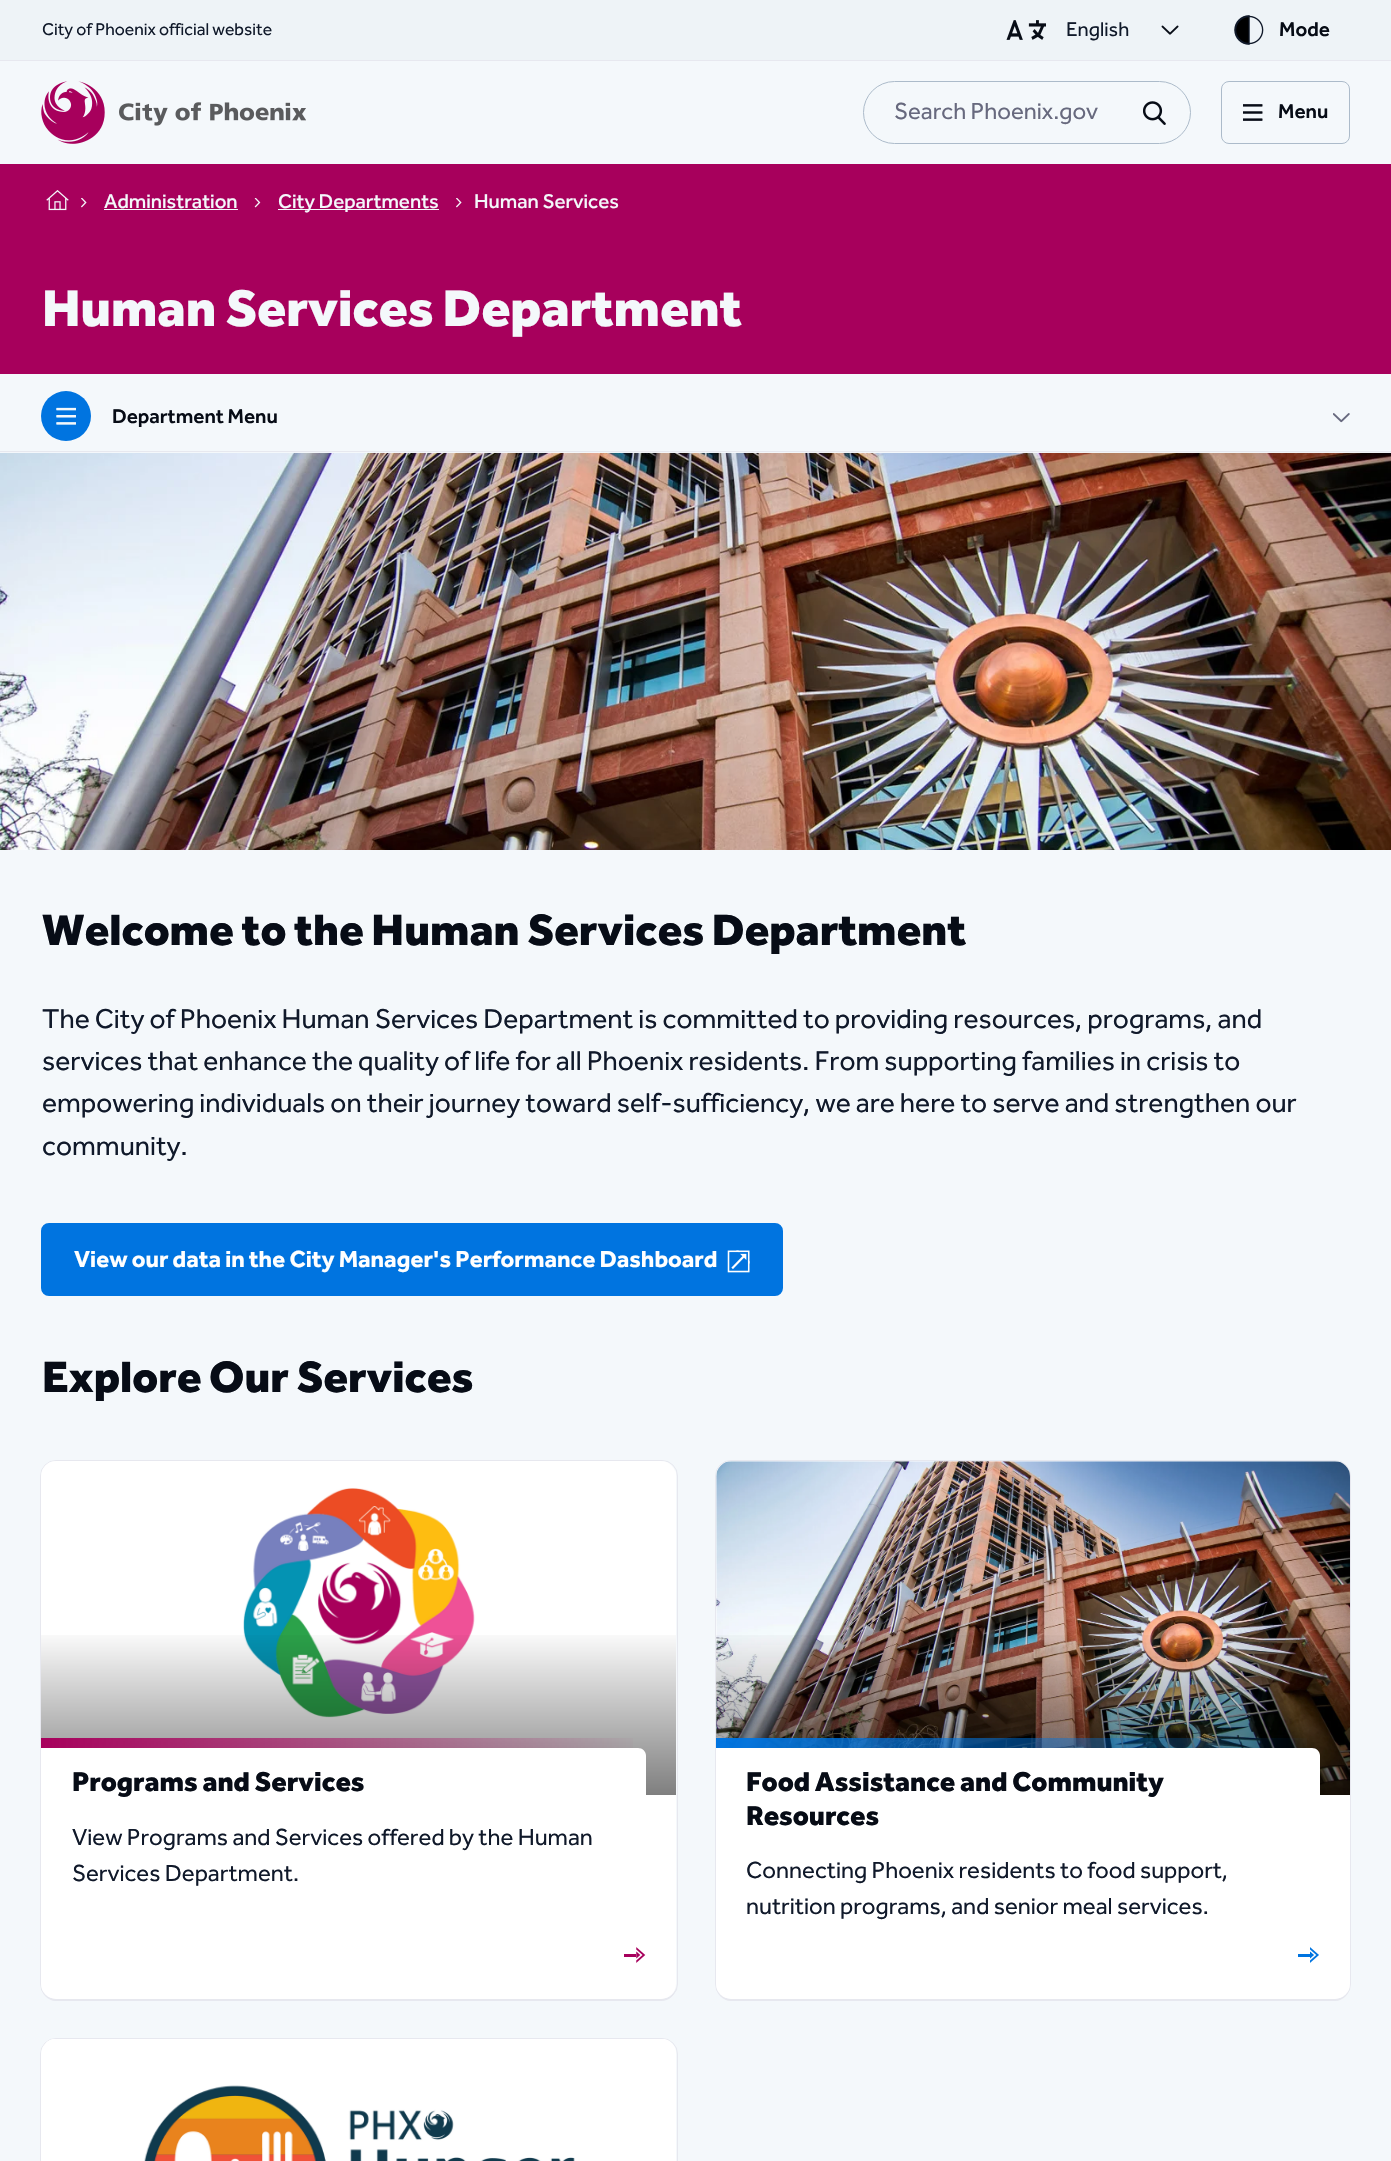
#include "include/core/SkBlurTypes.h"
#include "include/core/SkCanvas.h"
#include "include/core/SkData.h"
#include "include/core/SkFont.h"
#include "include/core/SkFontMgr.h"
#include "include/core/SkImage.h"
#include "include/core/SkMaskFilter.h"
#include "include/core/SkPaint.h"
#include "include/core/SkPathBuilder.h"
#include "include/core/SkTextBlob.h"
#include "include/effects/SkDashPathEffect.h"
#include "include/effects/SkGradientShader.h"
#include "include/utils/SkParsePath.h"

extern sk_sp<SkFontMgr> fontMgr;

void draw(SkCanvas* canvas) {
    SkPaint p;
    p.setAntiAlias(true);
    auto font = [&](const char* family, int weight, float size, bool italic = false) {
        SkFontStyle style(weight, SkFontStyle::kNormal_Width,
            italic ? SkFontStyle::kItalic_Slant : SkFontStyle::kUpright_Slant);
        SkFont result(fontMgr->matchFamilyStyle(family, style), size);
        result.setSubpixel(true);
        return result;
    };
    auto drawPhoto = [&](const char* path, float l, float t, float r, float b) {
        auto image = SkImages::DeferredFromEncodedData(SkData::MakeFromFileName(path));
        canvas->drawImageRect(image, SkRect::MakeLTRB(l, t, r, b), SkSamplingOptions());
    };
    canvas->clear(0xFFF4F8FB);
    p.setColor(0xFFEEF3F7);
    canvas->drawRect(SkRect::MakeLTRB(0, 0, 1391, 60), p);
    p.setColor(0xFFE7E8EF);
    canvas->drawRect(SkRect::MakeLTRB(0, 60, 1391, 61), p);
    auto font1 = font("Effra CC", 400, 17.6f);
    p.setColor(0xFF10192A);
    canvas->drawString("City of Phoenix official website", 42, 35, font1, p);
    drawPhoto("media/1.png", 1161, 25, 1179, 35);
    drawPhoto("media/2.png", 1006, 20, 1046, 40);
    auto font2 = font("Effra CC", 400, 20.5f);
    canvas->drawString("English", 1066, 36, font2, p);
    drawPhoto("media/3.png", 1234, 15, 1264, 45);
    auto font3 = font("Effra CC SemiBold", 600, 20.5f);
    p.setColor(0xFF070C16);
    canvas->drawString("Mode", 1279, 36, font3, p);
    drawPhoto("media/4.png", 41, 81, 306, 144);
    p.setStyle(SkPaint::kStroke_Style);
    p.setStrokeWidth(1);
    p.setColor(0xFFACBBCA);
    canvas->drawRoundRect(SkRect::MakeLTRB(863.5f, 81.5f, 1190.5f, 143.5f), 31, 31, p);
    auto font4 = font("Effra CC", 400, 24);
    p.setStyle(SkPaint::kFill_Style);
    p.setColor(0xFF67697E);
    canvas->drawString("Search Phoenix.gov", 894, 119, font4, p);
    drawPhoto("media/5.png", 1143, 101, 1166, 125);
    p.setStyle(SkPaint::kStroke_Style);
    p.setColor(0xFFACBBCA);
    canvas->drawRoundRect(SkRect::MakeLTRB(1221.5f, 81.5f, 1349.5f, 143.5f), 7.5f, 7.5f, p);
    drawPhoto("media/6.png", 1243, 104, 1263, 121);
    p.setStyle(SkPaint::kFill_Style);
    p.setColor(0xFF070C16);
    canvas->drawString("Menu", 1278, 118, font3, p);
    p.setColor(0xFFA7005C);
    canvas->drawRect(SkRect::MakeLTRB(0, 164, 1391, 374), p);
    drawPhoto("media/7.png", 46, 190, 69, 211);
    drawPhoto("media/8.png", 81, 198, 87, 208);
    auto font5 = font("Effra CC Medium", 500, 20.5f);
    p.setColor(0xFFF4F8FB);
    canvas->drawString("Administration", 104, 208, font5, p);
    canvas->drawRect(SkRect::MakeLTRB(104, 209, 238, 210), p);
    drawPhoto("media/9.png", 254, 198, 261, 208);
    canvas->drawRect(SkRect::MakeLTRB(278, 209, 439, 210), p);
    canvas->drawString("City Departments", 278, 208, font5, p);
    drawPhoto("media/8.png", 456, 198, 462, 208);
    canvas->drawString("Human Services", 474, 208, font5, p);
    auto font6 = font("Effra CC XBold", 700, 53.25f);
    canvas->drawString("Human Services Department", 42, 326, font6, p);
    drawPhoto("media/12.png", 0, 452, 1391, 850);
    p.setColor(0xF2F4F8FB);
    canvas->drawRect(SkRect::MakeLTRB(0, 452, 1391, 453), p);
    p.setColor(0xFFE7E8EF);
    canvas->drawRect(SkRect::MakeLTRB(0, 451, 1391, 452), p);
    p.setColor(0xFF0074E0);
    canvas->drawCircle(66, 416, 25, p);
    drawPhoto("media/10.png", 56, 407, 76, 425);
    p.setColor(0xFF070C16);
    canvas->drawString("Department Menu", 112, 423, font3, p);
    drawPhoto("media/11.png", 1333, 413, 1350, 423);
    auto font7 = font("Effra CC XBold", 700, 45.25f);
    canvas->drawString("Welcome to the Human Services Department", 42, 945, font7, p);
    auto font8 = font("Effra CC", 400, 28.1f);
    p.setColor(0xFF10192A);
    {
        const struct { const char* s; float x, y; } items[] = {
            {"The City of Phoenix Human Services Department is committed to providing resources, programs, and", 42, 1028},
            {"services that enhance the quality of life for all Phoenix residents. From supporting families in crisis to", 42, 1070},
            {"empowering individuals on their journey toward self-sufficiency, we are here to serve and strengthen our", 42, 1112},
            {"community.", 42, 1155},
        };
        for (auto [s, x, y] : items) {
            canvas->drawString(s, x, y, font8, p);
        }
    }
    p.setColor(0xFF0074E0);
    canvas->drawRoundRect(SkRect::MakeLTRB(42.5f, 1224.5f, 781.5f, 1294.5f), 6.5f, 6.5f, p);
    p.setStyle(SkPaint::kStroke_Style);
    p.setStrokeWidth(3);
    canvas->drawRoundRect(SkRect::MakeLTRB(42.5f, 1224.5f, 781.5f, 1294.5f), 6.5f, 6.5f, p);
    auto font9 = font("Effra CC", 700, 24);
    p.setStyle(SkPaint::kFill_Style);
    p.setColor(0xFFFFFFFF);
    canvas->drawString("View our data in the City Manager's Performance Dashboard", 74, 1267, font9, p);
    drawPhoto("media/13.png", 727, 1250, 750, 1273);
    p.setColor(0xFF070C16);
    canvas->drawString("Explore Our Services", 42, 1392, font7, p);
    p.setColor(0xFFE7E8EF);
    canvas->drawPath(SkPathBuilder().moveTo(41, 1476).lineTo(41, 1986).cubicTo(41, 1994, 48, 2001, 56, 2001).lineTo(661, 2001).cubicTo(669, 2001, 676, 1995, 676, 1987).cubicTo(675, 1993, 669, 1999, 661, 1999).lineTo(56, 1999).cubicTo(48, 1999, 41, 1992, 41, 1984).close().detach(), p);
    p.setStyle(SkPaint::kStroke_Style);
    p.setStrokeWidth(1);
    canvas->drawRoundRect(SkRect::MakeLTRB(40.5f, 1460.5f, 677.5f, 1999.5f), 15.5f, 15.5f, p);
    p.setStyle(SkPaint::kFill_Style);
    p.setColor(0xFFFFFFFF);
    canvas->drawRoundRect(SkRect::MakeLTRB(41, 1461, 676, 1999), 15, 15, p);
    drawPhoto("media/14.png", 243, 1471, 676, 1718);
    {
        const SkColor colors[] = {0x00000000, 0x80000000};
        const float stops[] = {0.5f, 1};
        const SkPoint ends[] = {{359, 1461}, {359, 1795}};
        p.setShader(SkGradientShader::MakeLinear(ends, colors, stops, 2, SkTileMode::kClamp));
        p.setAlpha(255);
    }
    canvas->drawRect(SkRect::MakeLTRB(41, 1635, 676, 1795), p);
    {
        const SkColor colors[] = {0xFFA7005C, 0x00A7005C};
        const float stops[] = {0, 1};
        const SkPoint ends[] = {{41, 1753}, {646, 1753}};
        p.setShader(SkGradientShader::MakeLinear(ends, colors, stops, 2, SkTileMode::kClamp));
        p.setAlpha(255);
    }
    canvas->drawRect(SkRect::MakeLTRB(41, 1738, 633, 1748), p);
    p.setShader(nullptr);
    p.setColor(0xFFFFFFFF);
    canvas->drawPath(SkPathBuilder().moveTo(41, 1748).lineTo(638, 1748).cubicTo(642.5f, 1748, 646, 1751.5f, 646, 1756).lineTo(646, 1801).lineTo(41, 1801).close().detach(), p);
    auto font10 = font("Effra CC XBold", 700, 28.1f);
    p.setColor(0xFF070C16);
    canvas->drawString("Programs and Services", 72, 1791, font10, p);
    p.setColor(0xFF10192A);
    canvas->drawString("View Programs and Services offered by the Human", 72, 1845, font4, p);
    canvas->drawString("Services Department.", 72, 1881, font4, p);
    p.setColor(0xFFA7005C);
    canvas->drawRect(SkRect::MakeLTRB(624, 1954, 636, 1957), p);
    drawPhoto("media/15.png", 636, 1947, 646, 1963);
    p.setColor(0xFFE7E8EF);
    canvas->drawPath(SkPathBuilder().moveTo(716, 1476).lineTo(716, 1986).cubicTo(716, 1994, 723, 2001, 731, 2001).lineTo(1335, 2001).cubicTo(1343, 2001, 1350, 1994, 1350, 1986).lineTo(1350, 1984).cubicTo(1350, 1992, 1343, 1999, 1335, 1999).lineTo(731, 1999).cubicTo(723, 1999, 716, 1992, 716, 1984).close().detach(), p);
    p.setStyle(SkPaint::kStroke_Style);
    canvas->drawRoundRect(SkRect::MakeLTRB(715.5f, 1460.5f, 1350.5f, 1999.5f), 15.5f, 15.5f, p);
    p.setStyle(SkPaint::kFill_Style);
    p.setColor(0xFFFFFFFF);
    canvas->drawRoundRect(SkRect::MakeLTRB(716, 1461, 1350, 1999), 15, 15, p);
    drawPhoto("media/16.png", 716, 1461, 1350, 1795);
    {
        const SkColor colors[] = {0x00000000, 0x80000000};
        const float stops[] = {0.5f, 1};
        const SkPoint ends[] = {{1033, 1461}, {1033, 1795}};
        p.setShader(SkGradientShader::MakeLinear(ends, colors, stops, 2, SkTileMode::kClamp));
        p.setAlpha(255);
    }
    canvas->drawRect(SkRect::MakeLTRB(716, 1635, 1350, 1795), p);
    {
        const SkColor colors[] = {0xFF0074E0, 0x000074E0};
        const float stops[] = {0, 1};
        const SkPoint ends[] = {{716, 1753}, {1320, 1753}};
        p.setShader(SkGradientShader::MakeLinear(ends, colors, stops, 2, SkTileMode::kClamp));
        p.setAlpha(255);
    }
    canvas->drawRect(SkRect::MakeLTRB(716, 1738, 1307, 1748), p);
    p.setShader(nullptr);
    p.setColor(0xFFFFFFFF);
    canvas->drawPath(SkPathBuilder().moveTo(716, 1748).lineTo(1312, 1748).cubicTo(1316.5f, 1748, 1320, 1751.5f, 1320, 1756).lineTo(1320, 1835).lineTo(716, 1835).close().detach(), p);
    p.setColor(0xFF070C16);
    canvas->drawString("Food Assistance and Community", 746, 1791, font10, p);
    canvas->drawString("Resources", 746, 1825, font10, p);
    p.setColor(0xFF10192A);
    canvas->drawString("Connecting Phoenix residents to food support,", 746, 1878, font4, p);
    canvas->drawString("nutrition programs, and senior meal services.", 746, 1914, font4, p);
    p.setColor(0xFF0074E0);
    canvas->drawRect(SkRect::MakeLTRB(1298, 1954, 1310, 1957), p);
    drawPhoto("media/17.png", 1310, 1947, 1319, 1963);
    p.setStyle(SkPaint::kStroke_Style);
    p.setColor(0xFFE7E8EF);
    canvas->drawRoundRect(SkRect::MakeLTRB(40.5f, 2038.5f, 677.5f, 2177.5f), 15.5f, 15.5f, p);
    p.setStyle(SkPaint::kFill_Style);
    p.setColor(0xFFFFFFFF);
    canvas->drawRoundRect(SkRect::MakeLTRB(41, 2039, 676, 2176), 15, 15, p);
    drawPhoto("media/18.png", 46, 2039, 676, 2161);
}
